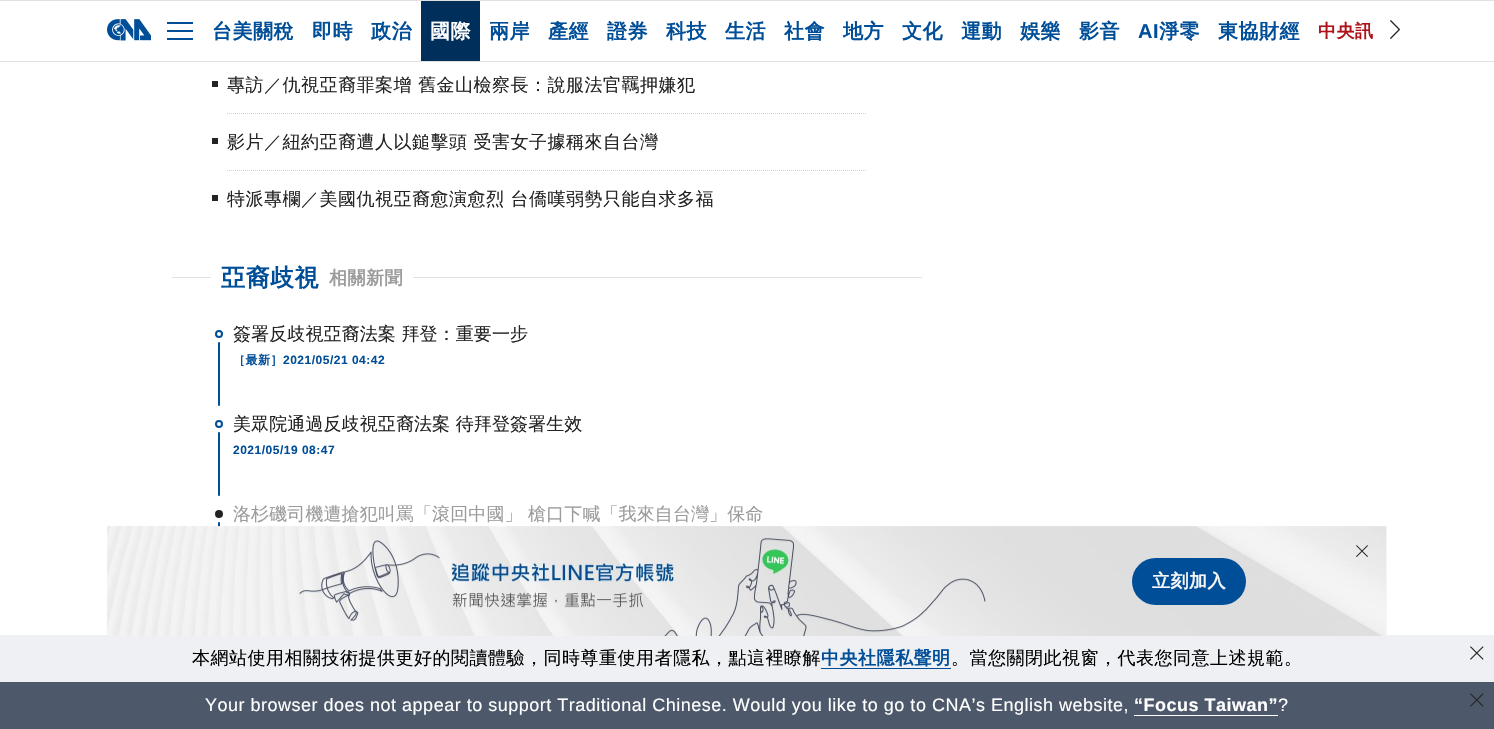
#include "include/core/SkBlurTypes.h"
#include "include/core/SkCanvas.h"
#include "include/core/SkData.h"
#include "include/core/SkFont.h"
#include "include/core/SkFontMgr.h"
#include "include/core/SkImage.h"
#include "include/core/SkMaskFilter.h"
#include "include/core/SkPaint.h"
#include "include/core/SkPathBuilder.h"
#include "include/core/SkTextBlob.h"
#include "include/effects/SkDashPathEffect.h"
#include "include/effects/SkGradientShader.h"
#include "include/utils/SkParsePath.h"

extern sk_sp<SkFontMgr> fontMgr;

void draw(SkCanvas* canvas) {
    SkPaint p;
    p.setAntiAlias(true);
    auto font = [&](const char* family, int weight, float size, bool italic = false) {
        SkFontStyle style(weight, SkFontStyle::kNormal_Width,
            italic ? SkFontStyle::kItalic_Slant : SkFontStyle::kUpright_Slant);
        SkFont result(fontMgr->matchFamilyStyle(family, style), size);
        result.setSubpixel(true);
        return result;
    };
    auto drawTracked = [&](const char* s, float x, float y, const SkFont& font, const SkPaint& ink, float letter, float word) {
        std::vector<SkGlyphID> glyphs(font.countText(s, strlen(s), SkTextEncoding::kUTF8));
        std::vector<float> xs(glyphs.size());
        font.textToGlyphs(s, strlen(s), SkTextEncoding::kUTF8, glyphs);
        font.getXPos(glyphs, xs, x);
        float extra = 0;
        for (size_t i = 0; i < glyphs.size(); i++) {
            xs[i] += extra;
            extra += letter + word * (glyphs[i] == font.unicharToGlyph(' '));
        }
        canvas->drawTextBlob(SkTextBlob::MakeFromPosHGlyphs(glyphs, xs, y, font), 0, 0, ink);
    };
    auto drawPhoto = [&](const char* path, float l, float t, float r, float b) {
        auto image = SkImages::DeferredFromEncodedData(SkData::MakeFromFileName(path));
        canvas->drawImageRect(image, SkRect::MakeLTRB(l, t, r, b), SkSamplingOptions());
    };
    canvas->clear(0xFFFFFFFF);
    p.setColor(0xFFE1E1E1);
    canvas->drawRect(SkRect::MakeLTRB(0, 0, 1494, 1), p);
    canvas->drawRect(SkRect::MakeLTRB(0, 61, 1494, 62), p);
    drawPhoto("media/1.png", 107, 19, 151, 41);
    {
        const struct { float l, t, r, b; SkColor color; } items[] = {
            {167, 22, 193, 24, 0xFF004E98},
            {167, 30, 193, 32, 0xFF004E98},
            {167, 38, 193, 40, 0xFF004E98},
        };
        for (auto [l, t, r, b, color] : items) {
            p.setColor(color);
            canvas->drawRect(SkRect::MakeLTRB(l, t, r, b), p);
        }
    }
    auto font1 = font("WenQuanYi Zen Hei", 700, 20);
    {
        const struct { const char* s; float x, y; } items[] = {
            {"台美關稅", 212, 38},
            {"即時", 312, 38},
            {"政治", 371, 38},
        };
        for (auto [s, x, y] : items) {
            drawTracked(s, x, y, font1, p, 0.5f, 0);
        }
    }
    p.setColor(0xFF002F5B);
    canvas->drawRect(SkRect::MakeLTRB(421, 1, 480, 61), p);
    p.setColor(0xFFFFFFFF);
    drawTracked("國際", 430, 38, font1, p, 0.5f, 0);
    p.setColor(0xFF004E98);
    {
        const struct { const char* s; float x, y; } items[] = {
            {"兩岸", 489, 38},
            {"產經", 548, 38},
            {"證券", 607, 38},
            {"科技", 666, 38},
            {"生活", 725, 38},
            {"社會", 784, 38},
            {"地方", 843, 38},
            {"文化", 902, 38},
            {"運動", 961, 38},
            {"娛樂", 1020, 38},
            {"影音", 1079, 38},
        };
        for (auto [s, x, y] : items) {
            drawTracked(s, x, y, font1, p, 0.5f, 0);
        }
    }
    auto font2 = font("Liberation Sans", 700, 20);
    drawTracked("AI", 1138, 38, font2, p, 0.5f, 0);
    drawTracked("淨零", 1159, 38, font1, p, 0.5f, 0);
    drawTracked("東協財經", 1218, 38, font1, p, 0.5f, 0);
    auto font3 = font("WenQuanYi Zen Hei", 700, 18);
    p.setColor(0xFFAE1319);
    drawTracked("中央訊", 1318, 37, font3, p, 0.5f, 0);
    drawPhoto("media/2.png", 1390, 20, 1400, 39);
    p.setStyle(SkPaint::kStroke_Style);
    p.setStrokeWidth(1);
    p.setColor(0xFFD2D2D2);
    p.setPathEffect(SkDashPathEffect::Make({{1, 1}}, 0));
    canvas->drawPath(SkPathBuilder().moveTo(227, 113.5f).lineTo(867, 113.5f).detach(), p);
    p.setPathEffect(nullptr);
    p.setStyle(SkPaint::kFill_Style);
    p.setColor(0xFF232323);
    canvas->drawRect(SkRect::MakeLTRB(212, 81, 218, 87), p);
    auto font4 = font("WenQuanYi Zen Hei", 500, 18);
    drawTracked("專訪／仇視亞裔罪案增 舊金山檢察長：說服法官羈押嫌犯", 227, 91, font4, p, 0.5f, 0);
    p.setStyle(SkPaint::kStroke_Style);
    p.setColor(0xFFD2D2D2);
    p.setPathEffect(SkDashPathEffect::Make({{1, 1}}, 0));
    canvas->drawPath(SkPathBuilder().moveTo(227, 170.5f).lineTo(867, 170.5f).detach(), p);
    p.setPathEffect(nullptr);
    p.setStyle(SkPaint::kFill_Style);
    p.setColor(0xFF232323);
    canvas->drawRect(SkRect::MakeLTRB(212, 138, 218, 144), p);
    drawTracked("影片／紐約亞裔遭人以鎚擊頭 受害女子據稱來自台灣", 227, 148, font4, p, 0.5f, 0);
    canvas->drawRect(SkRect::MakeLTRB(212, 195, 218, 201), p);
    drawTracked("特派專欄／美國仇視亞裔愈演愈烈 台僑嘆弱勢只能自求多福", 227, 205, font4, p, 0.5f, 0);
    p.setColor(0xFFE1E1E1);
    canvas->drawRect(SkRect::MakeLTRB(172, 277, 922, 278), p);
    p.setColor(0xFFFFFFFF);
    canvas->drawRect(SkRect::MakeLTRB(211, 277, 413, 278), p);
    auto font5 = font("WenQuanYi Zen Hei", 700, 24);
    p.setColor(0xFF004E98);
    drawTracked("亞裔歧視", 221, 286, font5, p, 0.5f, 0);
    p.setColor(0xFF9C9C9C);
    drawTracked("相關新聞", 329, 284, font3, p, 0.5f, 0);
    p.setStyle(SkPaint::kStroke_Style);
    p.setStrokeWidth(2);
    p.setColor(0xFF004E98);
    canvas->drawCircle(219, 334, 3, p);
    p.setStyle(SkPaint::kFill_Style);
    p.setColor(0xFF232323);
    drawTracked("簽署反歧視亞裔法案 拜登：重要一步", 233, 340, font4, p, 0.1f, 0);
    p.setColor(0xFF004E98);
    canvas->drawRoundRect(SkRect::MakeLTRB(218, 342, 220, 406), 1, 1, p);
    auto font6 = font("WenQuanYi Zen Hei", 700, 12);
    drawTracked("［最新］", 233, 364, font6, p, 0.5f, 0);
    auto font7 = font("Liberation Sans", 700, 12);
    drawTracked("2021/05/21 04:42", 283, 364, font7, p, 0.5f, 0);
    p.setStyle(SkPaint::kStroke_Style);
    canvas->drawCircle(219, 424, 3, p);
    p.setStyle(SkPaint::kFill_Style);
    p.setColor(0xFF232323);
    drawTracked("美眾院通過反歧視亞裔法案 待拜登簽署生效", 233, 430, font4, p, 0.1f, 0);
    p.setColor(0xFF004E98);
    canvas->drawRoundRect(SkRect::MakeLTRB(218, 432, 220, 496), 1, 1, p);
    drawTracked("2021/05/19 08:47", 233, 454, font7, p, 0.5f, 0);
    p.setColor(0xFF232323);
    canvas->drawCircle(219, 514, 3, p);
    p.setStyle(SkPaint::kStroke_Style);
    canvas->drawCircle(219, 514, 3, p);
    p.setStyle(SkPaint::kFill_Style);
    p.setColor(0xFF9C9C9C);
    drawTracked("洛杉磯司機遭搶犯叫罵「滾回中國」 槍口下喊「我來自台灣」保命", 233, 520, font4, p, 0.1f, 0);
    p.setColor(0xFF004E98);
    canvas->drawRoundRect(SkRect::MakeLTRB(218, 522, 220, 586), 1, 1, p);
    p.setColor(0xFFEEF0F3);
    canvas->drawRect(SkRect::MakeLTRB(0, 635, 1494, 682), p);
    drawPhoto("media/3.png", 107, 526, 1387, 636);
    drawPhoto("media/4.png", 1356, 545, 1368, 557);
    p.setColor(0xFF004E98);
    canvas->drawRoundRect(SkRect::MakeLTRB(1132, 558, 1246, 605), 23.5f, 23.5f, p);
    p.setColor(0xFFF6F6F6);
    drawTracked("立刻加入", 1152, 587, font3, p, 0.5f, 0);
    p.setColor(0xFF000000);
    drawTracked("本網站使用相關技術提供更好的閱讀體驗，同時尊重使用者隱私，點這裡瞭解", 192, 664, font4, p, 0.5f, 0);
    p.setColor(0xFF004E98);
    drawTracked("中央社隱私聲明", 821, 664, font3, p, 0.5f, 0);
    canvas->drawRect(SkRect::MakeLTRB(821, 668, 951, 669), p);
    p.setColor(0xFF000000);
    drawTracked("。當您關閉此視窗，代表您同意上述規範。", 951, 664, font4, p, 0.5f, 0);
    drawPhoto("media/5.png", 1470, 646, 1484, 660);
    p.setColor(0xFF4D596A);
    canvas->drawRect(SkRect::MakeLTRB(0, 682, 1494, 729), p);
    auto font8 = font("Liberation Sans", 400, 18);
    p.setColor(0xFFFFFFFF);
    drawTracked("Your browser does not appear to support Traditional Chinese. Would you like to go to CNA’s English website,", 205, 711, font8, p, 0.5f, 0);
    auto font9 = font("Liberation Sans", 700, 18);
    drawTracked("“Focus Taiwan”", 1134, 711, font9, p, 0.5f, 0);
    canvas->drawRect(SkRect::MakeLTRB(1134, 715, 1278, 716), p);
    drawTracked("?", 1278, 711, font8, p, 0.5f, 0);
    drawPhoto("media/6.png", 1470, 693, 1484, 707);
}
